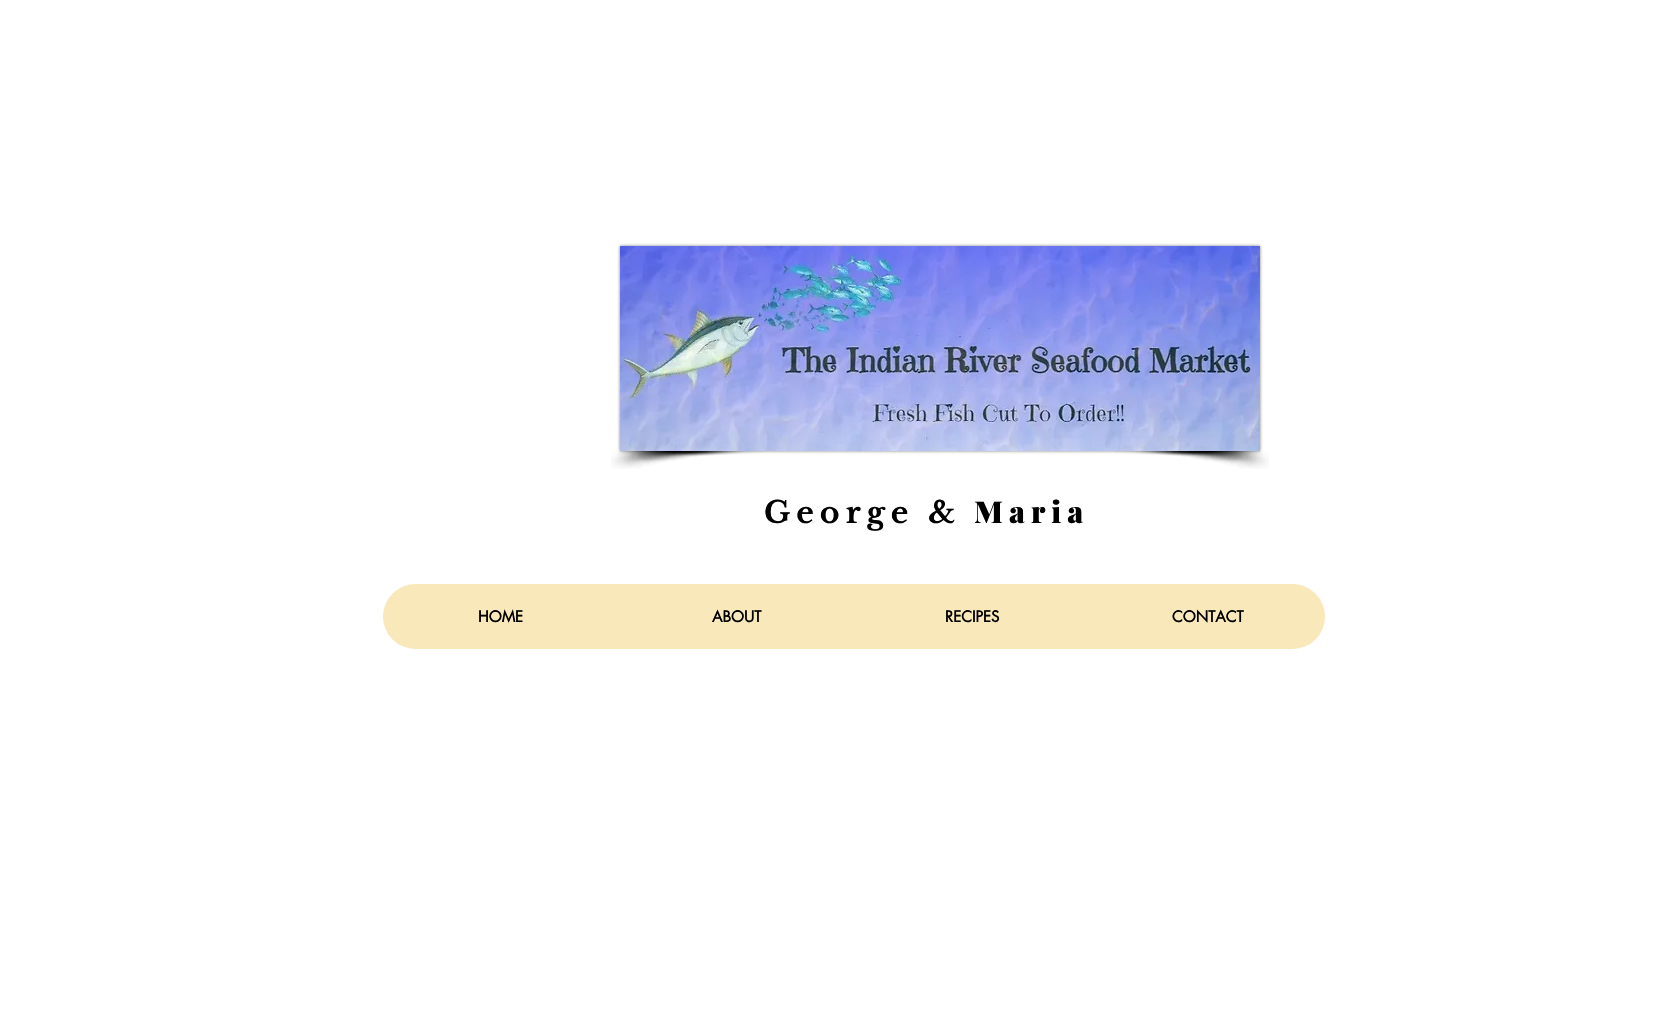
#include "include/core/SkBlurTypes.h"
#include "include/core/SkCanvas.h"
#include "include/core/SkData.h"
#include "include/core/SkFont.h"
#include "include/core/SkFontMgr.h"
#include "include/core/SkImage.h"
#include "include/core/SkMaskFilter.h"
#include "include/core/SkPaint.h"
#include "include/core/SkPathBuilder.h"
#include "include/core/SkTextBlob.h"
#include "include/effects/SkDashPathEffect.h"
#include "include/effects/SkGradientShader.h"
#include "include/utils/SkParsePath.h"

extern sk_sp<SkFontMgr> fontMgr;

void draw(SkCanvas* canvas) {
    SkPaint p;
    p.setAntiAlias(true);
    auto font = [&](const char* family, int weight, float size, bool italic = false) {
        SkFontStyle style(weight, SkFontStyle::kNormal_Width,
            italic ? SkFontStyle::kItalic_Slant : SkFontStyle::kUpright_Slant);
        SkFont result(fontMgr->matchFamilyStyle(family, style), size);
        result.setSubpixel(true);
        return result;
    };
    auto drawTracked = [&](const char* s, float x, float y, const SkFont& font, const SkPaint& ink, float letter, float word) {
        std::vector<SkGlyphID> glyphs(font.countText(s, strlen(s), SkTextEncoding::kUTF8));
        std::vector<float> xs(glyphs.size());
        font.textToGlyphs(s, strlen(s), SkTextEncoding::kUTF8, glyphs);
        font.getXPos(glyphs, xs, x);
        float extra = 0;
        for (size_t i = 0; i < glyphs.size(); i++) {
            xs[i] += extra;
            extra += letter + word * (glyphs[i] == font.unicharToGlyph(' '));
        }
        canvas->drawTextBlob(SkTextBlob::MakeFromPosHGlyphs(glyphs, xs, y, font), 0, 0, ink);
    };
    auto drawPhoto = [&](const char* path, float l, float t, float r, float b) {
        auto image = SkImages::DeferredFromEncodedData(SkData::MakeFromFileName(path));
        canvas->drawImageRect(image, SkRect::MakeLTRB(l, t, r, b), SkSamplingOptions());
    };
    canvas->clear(0xFFFFFFFF);
    p.setColor(0x80000000);
    p.setMaskFilter(SkMaskFilter::MakeBlur(kNormal_SkBlurStyle, 1.5f));
    canvas->drawRect(SkRect::MakeLTRB(620, 246, 1260, 451), p);
    p.setMaskFilter(nullptr);
    drawPhoto("media/1.png", 620, 246, 1260, 451);
    drawPhoto("media/2.png", 611, 451, 765, 469);
    drawPhoto("media/3.png", 1115, 451, 1269, 469);
    auto font1 = font("Libre Baskerville", 700, 30);
    p.setColor(0xFF000000);
    drawTracked("George &", 764, 523, font1, p, 6, 0);
    auto font2 = font("Playfair Display", 900, 30);
    drawTracked("Maria", 974, 523, font2, p, 6, 0);
    p.setColor(0xFFF8E8BA);
    canvas->drawRoundRect(SkRect::MakeLTRB(383, 584, 1325, 649), 32.5f, 32.5f, p);
    auto font3 = font("futura", 700, 15);
    p.setColor(0xFF000000);
    {
        const struct { const char* s; float x, y; } items[] = {
            {"HOME", 478, 622},
            {"ABOUT", 712, 622},
            {"RECIPES", 945, 622},
            {"CONTACT", 1172, 622},
        };
        for (auto [s, x, y] : items) {
            canvas->drawString(s, x, y, font3, p);
        }
    }
}
